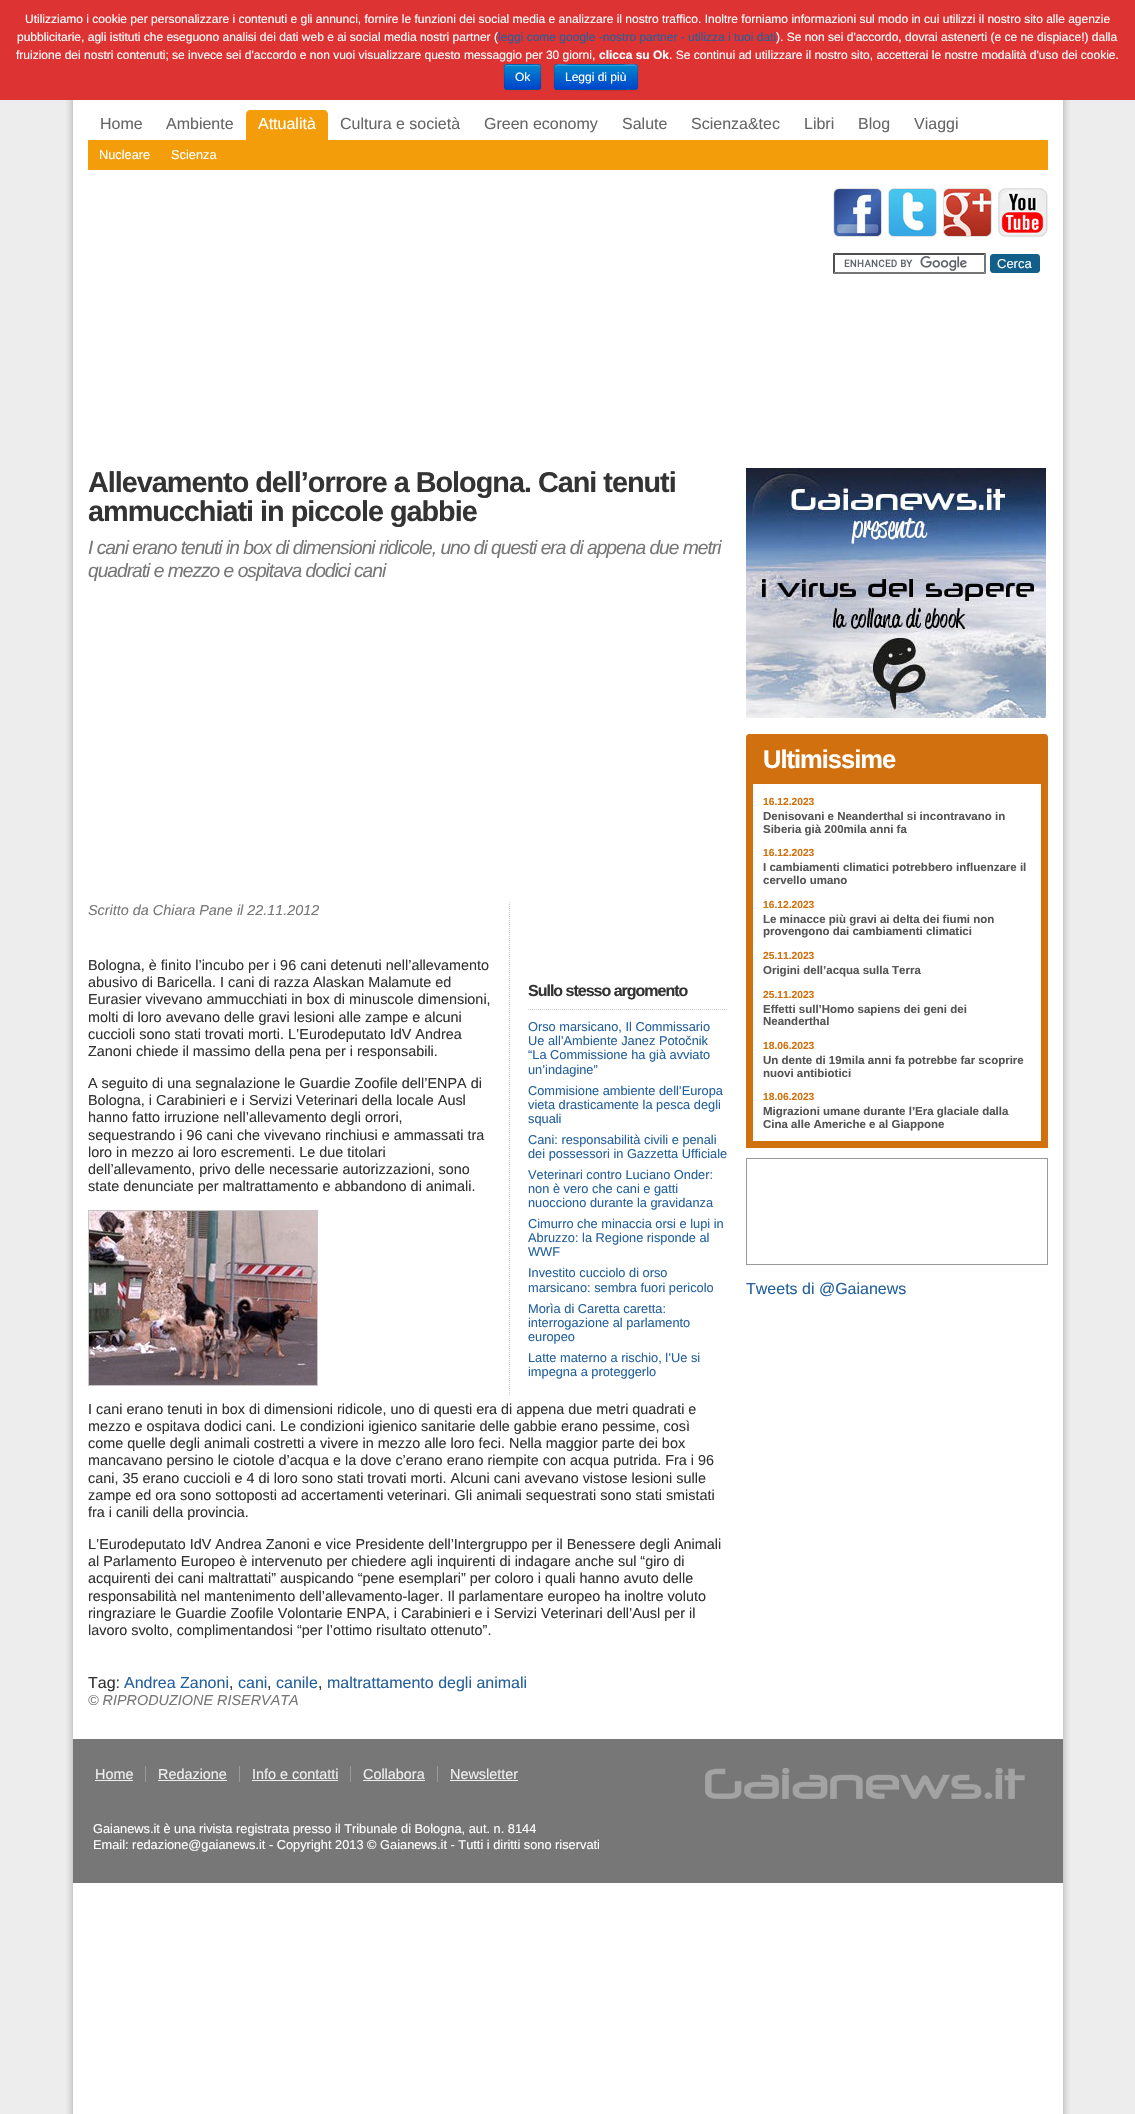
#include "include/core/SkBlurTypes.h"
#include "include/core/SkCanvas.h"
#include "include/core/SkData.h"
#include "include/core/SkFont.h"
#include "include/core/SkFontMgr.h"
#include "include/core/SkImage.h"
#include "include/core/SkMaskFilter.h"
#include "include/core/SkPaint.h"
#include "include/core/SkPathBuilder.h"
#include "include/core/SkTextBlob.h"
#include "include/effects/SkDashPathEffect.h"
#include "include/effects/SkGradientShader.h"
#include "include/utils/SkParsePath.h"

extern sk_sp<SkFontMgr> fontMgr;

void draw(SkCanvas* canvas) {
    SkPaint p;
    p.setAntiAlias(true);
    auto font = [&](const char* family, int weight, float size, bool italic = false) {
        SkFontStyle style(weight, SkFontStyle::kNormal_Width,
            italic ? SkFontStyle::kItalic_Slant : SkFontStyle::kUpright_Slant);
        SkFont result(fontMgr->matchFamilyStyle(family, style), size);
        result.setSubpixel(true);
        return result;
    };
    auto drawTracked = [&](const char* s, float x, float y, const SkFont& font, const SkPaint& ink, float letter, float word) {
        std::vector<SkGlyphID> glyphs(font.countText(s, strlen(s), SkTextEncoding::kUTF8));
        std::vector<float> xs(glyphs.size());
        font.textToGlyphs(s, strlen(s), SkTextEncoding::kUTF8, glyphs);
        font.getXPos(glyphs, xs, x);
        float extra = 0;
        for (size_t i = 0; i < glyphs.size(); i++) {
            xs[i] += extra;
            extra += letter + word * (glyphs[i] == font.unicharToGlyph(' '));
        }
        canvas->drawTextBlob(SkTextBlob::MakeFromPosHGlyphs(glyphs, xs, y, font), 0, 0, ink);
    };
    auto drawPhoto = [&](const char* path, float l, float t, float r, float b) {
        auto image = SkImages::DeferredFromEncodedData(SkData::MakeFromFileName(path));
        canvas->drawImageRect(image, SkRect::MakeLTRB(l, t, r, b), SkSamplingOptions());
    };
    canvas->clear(0xFFEDEDED);
    drawPhoto("media/1.png", 66, 100, 1070, 2114);
    p.setColor(0xFFDD3333);
    canvas->drawRect(SkRect::MakeLTRB(0, 0, 1135, 100), p);
    auto font1 = font("Liberation Sans", 400, 12);
    p.setColor(0xFFFFFFFF);
    canvas->drawString("Utilizziamo i cookie per personalizzare i contenuti e gli annunci, fornire le funzioni dei social media e analizzare il nostro traffico. Inoltre forniamo informazioni sul modo in cui utilizzi il nostro sito alle agenzie", 25, 23, font1, p);
    canvas->drawString("pubblicitarie, agli istituti che eseguono analisi dei dati web e ai social media nostri partner (", 17, 41, font1, p);
    p.setColor(0xFF23609C);
    canvas->drawString("leggi come google -nostro partner - utilizza i tuoi dati", 498, 41, font1, p);
    p.setColor(0xFFFFFFFF);
    canvas->drawString("). Se non sei d'accordo, dovrai astenerti (e ce ne dispiace!) dalla", 776, 41, font1, p);
    canvas->drawString("fruizione dei nostri contenuti; se invece sei d'accordo e non vuoi visualizzare questo messaggio per 30 giorni,", 16, 59, font1, p);
    auto font2 = font("Liberation Sans", 700, 12);
    canvas->drawString("clicca su Ok", 599, 59, font2, p);
    canvas->drawString(". Se continui ad utilizzare il nostro sito, accetterai le nostre modalità d'uso dei cookie.", 669, 59, font1, p);
    p.setColor(0x0D000000);
    p.setMaskFilter(SkMaskFilter::MakeBlur(kNormal_SkBlurStyle, 1));
    canvas->drawRoundRect(SkRect::MakeLTRB(504, 65, 541, 91), 3, 3, p);
    p.setMaskFilter(nullptr);
    p.setColor(0xFF006DCC);
    canvas->drawRoundRect(SkRect::MakeLTRB(504, 64, 541, 90), 3, 3, p);
    canvas->save();
    canvas->clipPath(SkPathBuilder().moveTo(507, 64).lineTo(538, 64).cubicTo(539.5f, 64, 541, 65.5f, 541, 67).lineTo(541, 87).cubicTo(541, 88.5f, 539.5f, 90, 538, 90).lineTo(507, 90).cubicTo(505.5f, 90, 504, 88.5f, 504, 87).lineTo(504, 67).cubicTo(504, 65.5f, 505.5f, 64, 507, 64).close().detach(), true);
    {
        const SkColor colors[] = {0xFF0088CC, 0xFF0044CC};
        const float stops[] = {0, 1};
        const SkPoint ends[] = {{523, 65}, {523, 89}};
        p.setShader(SkGradientShader::MakeLinear(ends, colors, stops, 2, SkTileMode::kClamp));
        p.setAlpha(255);
    }
    canvas->drawRect(SkRect::MakeLTRB(504, 65, 541, 89), p);
    canvas->restore();
    p.setShader(nullptr);
    p.setColor(0x33FFFFFF);
    canvas->drawPath(SkPathBuilder().moveTo(507, 66).lineTo(538, 66).cubicTo(539, 66, 540, 67, 540, 68).cubicTo(540, 63.5f, 536.5f, 65, 533, 65).lineTo(512, 65).cubicTo(508.5f, 65, 505, 63.5f, 505, 68).cubicTo(505, 67, 506, 66, 507, 66).close().detach(), p);
    p.setStyle(SkPaint::kStroke_Style);
    p.setStrokeWidth(1);
    p.setColor(0x40000000);
    canvas->drawPath(SkPathBuilder().moveTo(540, 89).cubicTo(539.5f, 89, 538.5f, 89.5f, 538, 89.5f).lineTo(507, 89.5f).cubicTo(506.5f, 89.5f, 505.5f, 89, 505, 89).detach(), p);
    p.setColor(0x1A000000);
    canvas->drawPath(SkPathBuilder().moveTo(505, 89).cubicTo(505, 88.5f, 504.5f, 87.5f, 504.5f, 87).lineTo(504.5f, 67).cubicTo(504.5f, 66.5f, 505, 65.5f, 505, 65).cubicTo(505.5f, 65, 506.5f, 64.5f, 507, 64.5f).lineTo(538, 64.5f).cubicTo(538.5f, 64.5f, 539.5f, 65, 540, 65).cubicTo(540, 65.5f, 540.5f, 66.5f, 540.5f, 67).lineTo(540.5f, 87).cubicTo(540.5f, 87.5f, 540, 88.5f, 540, 89).detach(), p);
    p.setStyle(SkPaint::kFill_Style);
    p.setColor(0xFFFFFFFF);
    canvas->drawString("Ok", 515, 81, font1, p);
    p.setColor(0x0D000000);
    p.setMaskFilter(SkMaskFilter::MakeBlur(kNormal_SkBlurStyle, 1));
    canvas->drawRoundRect(SkRect::MakeLTRB(554, 65, 638, 91), 3, 3, p);
    p.setMaskFilter(nullptr);
    p.setColor(0xFF006DCC);
    canvas->drawRoundRect(SkRect::MakeLTRB(554, 64, 638, 90), 3, 3, p);
    canvas->save();
    canvas->clipPath(SkPathBuilder().moveTo(557, 64).lineTo(635, 64).cubicTo(636.5f, 64, 638, 65.5f, 638, 67).lineTo(638, 87).cubicTo(638, 88.5f, 636.5f, 90, 635, 90).lineTo(557, 90).cubicTo(555.5f, 90, 554, 88.5f, 554, 87).lineTo(554, 67).cubicTo(554, 65.5f, 555.5f, 64, 557, 64).close().detach(), true);
    {
        const SkColor colors[] = {0xFF0088CC, 0xFF0044CC};
        const float stops[] = {0, 1};
        const SkPoint ends[] = {{596, 65}, {596, 89}};
        p.setShader(SkGradientShader::MakeLinear(ends, colors, stops, 2, SkTileMode::kClamp));
        p.setAlpha(255);
    }
    canvas->drawRect(SkRect::MakeLTRB(554, 65, 638, 89), p);
    canvas->restore();
    p.setShader(nullptr);
    p.setColor(0x33FFFFFF);
    canvas->drawPath(SkPathBuilder().moveTo(557, 66).lineTo(635, 66).cubicTo(636, 66, 637, 67, 637, 68).cubicTo(637, 61, 625, 65, 622, 65).lineTo(570, 65).cubicTo(567, 65, 555, 61, 555, 68).cubicTo(555, 67, 556, 66, 557, 66).close().detach(), p);
    p.setStyle(SkPaint::kStroke_Style);
    p.setColor(0x40000000);
    canvas->drawPath(SkPathBuilder().moveTo(637, 89).lineTo(636.5f, 89).cubicTo(634.5f, 90.5f, 577, 89.5f, 570, 89.5f).lineTo(557, 89.5f).lineTo(555, 89).detach(), p);
    p.setColor(0x1A000000);
    canvas->drawPath(SkPathBuilder().moveTo(555, 89).cubicTo(553.5f, 87, 554.5f, 82.5f, 554.5f, 80.5f).cubicTo(554.5f, 61.5f, 551, 64.5f, 570, 64.5f).lineTo(622, 64.5f).cubicTo(641, 64.5f, 637.5f, 61.5f, 637.5f, 80.5f).cubicTo(637.5f, 82.5f, 638.5f, 87, 637, 89).detach(), p);
    p.setStyle(SkPaint::kFill_Style);
    p.setColor(0xFFFFFFFF);
    canvas->drawString("Leggi di più", 565, 81, font1, p);
    p.setColor(0xFFF39D0A);
    canvas->drawPath(SkPathBuilder().moveTo(250, 110).lineTo(324, 110).cubicTo(326, 110, 328, 112, 328, 114).lineTo(328, 140).lineTo(246, 140).lineTo(246, 114).cubicTo(246, 112, 248, 110, 250, 110).close().detach(), p);
    auto font3 = font("Liberation Sans", 400, 16);
    p.setColor(0xFFFFFFFF);
    canvas->drawString("Attualità", 258, 129, font3, p);
    p.setColor(0xFFF39D0A);
    canvas->drawRect(SkRect::MakeLTRB(88, 140, 1048, 170), p);
    auto font4 = font("Liberation Sans", 400, 12.8f);
    p.setColor(0xFFFFFFFF);
    canvas->drawString("Nucleare", 99, 159, font4, p);
    canvas->drawString("Scienza", 171, 159, font4, p);
    p.setColor(0xFF666666);
    {
        const struct { const char* s; float x, y; } items[] = {
            {"Home", 100, 129},
            {"Ambiente", 166, 129},
            {"Cultura e società", 340, 129},
            {"Green economy", 484, 129},
            {"Salute", 622, 129},
            {"Scienza&tec", 691, 129},
            {"Libri", 804, 129},
            {"Blog", 858, 129},
            {"Viaggi", 914, 129},
        };
        for (auto [s, x, y] : items) {
            canvas->drawString(s, x, y, font3, p);
        }
    }
    drawPhoto("media/2.png", 833, 188, 883, 237);
    drawPhoto("media/3.png", 888, 188, 938, 237);
    drawPhoto("media/4.png", 943, 188, 993, 237);
    drawPhoto("media/5.png", 998, 188, 1048, 237);
    drawPhoto("media/6.png", 844, 256, 967, 271);
    p.setColor(0xFF4F4F4F);
    canvas->drawPath(SkPathBuilder().moveTo(833, 253).lineTo(986, 253).lineTo(984, 255).lineTo(835, 255).close().detach(), p);
    p.setColor(0xFF767676);
    canvas->drawPath(SkPathBuilder().moveTo(986, 253).lineTo(986, 274).lineTo(984, 272).lineTo(984, 255).close().detach(), p);
    canvas->drawPath(SkPathBuilder().moveTo(986, 274).lineTo(833, 274).lineTo(835, 272).lineTo(984, 272).close().detach(), p);
    p.setColor(0xFF4F4F4F);
    canvas->drawPath(SkPathBuilder().moveTo(833, 274).lineTo(833, 253).lineTo(835, 255).lineTo(835, 272).close().detach(), p);
    p.setColor(0xFF125F89);
    canvas->drawRoundRect(SkRect::MakeLTRB(990.5f, 254.5f, 1039.5f, 272.5f), 2.5f, 2.5f, p);
    p.setStyle(SkPaint::kStroke_Style);
    canvas->drawRoundRect(SkRect::MakeLTRB(990.5f, 254.5f, 1039.5f, 272.5f), 2.5f, 2.5f, p);
    auto font5 = font("Liberation Sans", 400, 13);
    p.setStyle(SkPaint::kFill_Style);
    p.setColor(0xFFFFFFFF);
    canvas->drawString("Cerca", 997, 268, font5, p);
    auto font6 = font("Liberation Sans", 700, 28.8f);
    p.setColor(0xFF333333);
    drawTracked("Allevamento dell’orrore a Bologna. Cani tenuti", 88, 492, font6, p, -1, 0);
    drawTracked("ammucchiati in piccole gabbie", 88, 521, font6, p, -1, 0);
    auto font7 = font("Liberation Sans", 400, 19.2f, true);
    p.setColor(0xFF777777);
    drawTracked("I cani erano tenuti in box di dimensioni ridicole, uno di questi era di appena due metri", 88, 554, font7, p, -1, 0);
    drawTracked("quadrati e mezzo e ospitava dodici cani", 88, 577, font7, p, -1, 0);
    auto font8 = font("Liberation Sans", 400, 14.4f, true);
    canvas->drawString("Scritto da Chiara Pane il 22.11.2012", 88, 915, font8, p);
    auto font9 = font("Liberation Sans", 400, 14.4f);
    p.setColor(0xFF333333);
    {
        const struct { const char* s; float x, y; } items[] = {
            {"Bologna, è finito l’incubo per i 96 cani detenuti nell’allevamento", 88, 970},
            {"abusivo di Baricella. I cani di razza Alaskan Malamute ed", 88, 987},
            {"Eurasier vivevano ammucchiati in box di minuscole dimensioni,", 88, 1004},
            {"molti di loro avevano delle gravi lesioni alle zampe e alcuni", 88, 1022},
            {"cuccioli sono stati trovati morti. L’Eurodeputato IdV Andrea", 88, 1039},
            {"Zanoni chiede il massimo della pena per i responsabili.", 88, 1056},
            {"A seguito di una segnalazione le Guardie Zoofile dell’ENPA di", 88, 1088},
            {"Bologna, i Carabinieri e i Servizi Veterinari della locale Ausl", 88, 1105},
            {"hanno fatto irruzione nell’allevamento degli orrori,", 88, 1122},
            {"sequestrando i 96 cani che vivevano rinchiusi e ammassati tra", 88, 1140},
            {"loro in mezzo ai loro escrementi. Le due titolari", 88, 1157},
            {"dell’allevamento, privo delle necessarie autorizzazioni, sono", 88, 1174},
            {"state denunciate per maltrattamento e abbandono di animali.", 88, 1191},
        };
        for (auto [s, x, y] : items) {
            canvas->drawString(s, x, y, font9, p);
        }
    }
    drawPhoto("media/7.png", 88, 1210, 318, 1386);
    {
        const struct { const char* s; float x, y; } items[] = {
            {"I cani erano tenuti in box di dimensioni ridicole, uno di questi era di appena due metri quadrati e", 88, 1414},
            {"mezzo e ospitava dodici cani. Le condizioni igienico sanitarie delle gabbie erano pessime, così", 88, 1431},
            {"come quelle degli animali costretti a vivere in mezzo alle loro feci. Nella maggior parte dei box", 88, 1448},
            {"mancavano persino le ciotole d’acqua e la dove c’erano erano riempite con acqua putrida. Fra i 96", 88, 1465},
            {"cani, 35 erano cuccioli e 4 di loro sono stati trovati morti. Alcuni cani avevano vistose lesioni sulle", 88, 1483},
            {"zampe ed ora sono sottoposti ad accertamenti veterinari. Gli animali sequestrati sono stati smistati", 88, 1500},
            {"fra i canili della provincia.", 88, 1517},
            {"L’Eurodeputato IdV Andrea Zanoni e vice Presidente dell’Intergruppo per il Benessere degli Animali", 88, 1549},
            {"al Parlamento Europeo è intervenuto per chiedere agli inquirenti di indagare anche sul “giro di", 88, 1566},
            {"acquirenti dei cani maltrattati” auspicando “pene esemplari” per coloro i quali hanno avuto delle", 88, 1583},
            {"responsabilità nel mantenimento dell’allevamento-lager. Il parlamentare europeo ha inoltre voluto", 88, 1601},
            {"ringraziare le Guardie Zoofile Volontarie ENPA, i Carabinieri e i Servizi Veterinari dell’Ausl per il", 88, 1618},
            {"lavoro svolto, complimentandosi “per l’ottimo risultato ottenuto”.", 88, 1635},
        };
        for (auto [s, x, y] : items) {
            canvas->drawString(s, x, y, font9, p);
        }
    }
    p.setStyle(SkPaint::kStroke_Style);
    p.setColor(0xFFCCCCCC);
    p.setPathEffect(SkDashPathEffect::Make({{1, 1}}, 0));
    canvas->drawPath(SkPathBuilder().moveTo(509.5f, 902).lineTo(509.5f, 1396).detach(), p);
    p.setPathEffect(nullptr);
    p.setPathEffect(SkDashPathEffect::Make({{1, 1}}, 0));
    canvas->drawPath(SkPathBuilder().moveTo(528, 1009.5f).lineTo(728, 1009.5f).detach(), p);
    p.setPathEffect(nullptr);
    auto font10 = font("Liberation Sans", 700, 16);
    p.setStyle(SkPaint::kFill_Style);
    p.setColor(0xFF333333);
    drawTracked("Sullo stesso argomento", 528, 996, font10, p, -1, 0);
    p.setColor(0xFF23609C);
    {
        const struct { const char* s; float x, y; } items[] = {
            {"Orso marsicano, Il Commissario", 528, 1031},
            {"Ue all’Ambiente Janez Potočnik", 528, 1045},
            {"“La Commissione ha già avviato", 528, 1059},
            {"un’indagine”", 528, 1074},
            {"Commisione ambiente dell’Europa", 528, 1095},
            {"vieta drasticamente la pesca degli", 528, 1109},
            {"squali", 528, 1123},
            {"Cani: responsabilità civili e penali", 528, 1144},
            {"dei possessori in Gazzetta Ufficiale", 528, 1158},
            {"Veterinari contro Luciano Onder:", 528, 1179},
            {"non è vero che cani e gatti", 528, 1193},
            {"nuocciono durante la gravidanza", 528, 1207},
            {"Cimurro che minaccia orsi e lupi in", 528, 1228},
            {"Abruzzo: la Regione risponde al", 528, 1242},
            {"WWF", 528, 1256},
            {"Investito cucciolo di orso", 528, 1277},
            {"marsicano: sembra fuori pericolo", 528, 1292},
            {"Morìa di Caretta caretta:", 528, 1313},
            {"interrogazione al parlamento", 528, 1327},
            {"europeo", 528, 1341},
            {"Latte materno a rischio, l’Ue si", 528, 1362},
            {"impegna a proteggerlo", 528, 1376},
        };
        for (auto [s, x, y] : items) {
            canvas->drawString(s, x, y, font4, p);
        }
    }
    p.setColor(0xFF333333);
    canvas->drawString("Tag:", 88, 1688, font3, p);
    p.setColor(0xFF23609C);
    canvas->drawString("Andrea Zanoni", 124, 1688, font3, p);
    p.setColor(0xFF333333);
    canvas->drawString(",", 229, 1688, font3, p);
    p.setColor(0xFF23609C);
    canvas->drawString("cani", 238, 1688, font3, p);
    p.setColor(0xFF333333);
    canvas->drawString(",", 267, 1688, font3, p);
    p.setColor(0xFF23609C);
    canvas->drawString("canile", 276, 1688, font3, p);
    p.setColor(0xFF333333);
    canvas->drawString(",", 318, 1688, font3, p);
    p.setColor(0xFF23609C);
    canvas->drawString("maltrattamento degli animali", 327, 1688, font3, p);
    p.setColor(0xFF777777);
    canvas->drawString("© RIPRODUZIONE RISERVATA", 88, 1705, font8, p);
    drawPhoto("media/8.png", 746, 468, 1046, 718);
    p.setColor(0xFFD1700E);
    canvas->drawPath(SkPathBuilder().moveTo(749, 734).lineTo(1045, 734).cubicTo(1046.5f, 734, 1048, 735.5f, 1048, 737).lineTo(1048, 784).lineTo(746, 784).lineTo(746, 737).cubicTo(746, 735.5f, 747.5f, 734, 749, 734).close().detach(), p);
    auto font11 = font("Liberation Sans", 700, 25.5f);
    p.setColor(0xFFFFFFFF);
    drawTracked("Ultimissime", 763, 768, font11, p, -1, 0);
    {
        const struct { float l, t, r, b; SkColor color; } items[] = {
            {1041, 784, 1048, 1148, 0xFFD1700E},
            {746, 1141, 1048, 1148, 0xFFD1700E},
            {746, 784, 753, 1148, 0xFFD1700E},
        };
        for (auto [l, t, r, b, color] : items) {
            p.setColor(color);
            canvas->drawRect(SkRect::MakeLTRB(l, t, r, b), p);
        }
    }
    auto font12 = font("Liberation Sans", 700, 10.25f);
    canvas->drawString("16.12.2023", 763, 805, font12, p);
    auto font13 = font("Liberation Sans", 700, 11.5f);
    p.setColor(0xFF555555);
    canvas->drawString("Denisovani e Neanderthal si incontravano in", 763, 820, font13, p);
    canvas->drawString("Siberia già 200mila anni fa", 763, 833, font13, p);
    p.setColor(0xFFD1700E);
    canvas->drawString("16.12.2023", 763, 856, font12, p);
    p.setColor(0xFF555555);
    canvas->drawString("I cambiamenti climatici potrebbero influenzare il", 763, 871, font13, p);
    canvas->drawString("cervello umano", 763, 884, font13, p);
    p.setColor(0xFFD1700E);
    canvas->drawString("16.12.2023", 763, 908, font12, p);
    p.setColor(0xFF555555);
    canvas->drawString("Le minacce più gravi ai delta dei fiumi non", 763, 923, font13, p);
    canvas->drawString("provengono dai cambiamenti climatici", 763, 935, font13, p);
    p.setColor(0xFFD1700E);
    canvas->drawString("25.11.2023", 763, 959, font12, p);
    p.setColor(0xFF555555);
    canvas->drawString("Origini dell’acqua sulla Terra", 763, 974, font13, p);
    p.setColor(0xFFD1700E);
    canvas->drawString("25.11.2023", 763, 998, font12, p);
    p.setColor(0xFF555555);
    canvas->drawString("Effetti sull’Homo sapiens dei geni dei", 763, 1013, font13, p);
    canvas->drawString("Neanderthal", 763, 1025, font13, p);
    p.setColor(0xFFD1700E);
    canvas->drawString("18.06.2023", 763, 1049, font12, p);
    p.setColor(0xFF555555);
    canvas->drawString("Un dente di 19mila anni fa potrebbe far scoprire", 763, 1064, font13, p);
    canvas->drawString("nuovi antibiotici", 763, 1077, font13, p);
    p.setColor(0xFFD1700E);
    canvas->drawString("18.06.2023", 763, 1100, font12, p);
    p.setColor(0xFF555555);
    canvas->drawString("Migrazioni umane durante l’Era glaciale dalla", 763, 1115, font13, p);
    canvas->drawString("Cina alle Americhe e al Giappone", 763, 1128, font13, p);
    p.setStyle(SkPaint::kStroke_Style);
    p.setColor(0xFF999999);
    canvas->drawRect(SkRect::MakeLTRB(746.5f, 1158.5f, 1047.5f, 1264.5f), p);
    p.setStyle(SkPaint::kFill_Style);
    p.setColor(0xFF23609C);
    canvas->drawString("Tweets di @Gaianews", 746, 1294, font3, p);
    p.setColor(0xFF777777);
    canvas->drawRect(SkRect::MakeLTRB(73, 1739, 1063, 1883), p);
    p.setColor(0xFFEEEEEE);
    canvas->drawString("Home", 95, 1779, font9, p);
    p.setColor(0xFF999999);
    canvas->drawRect(SkRect::MakeLTRB(145, 1766, 146, 1782), p);
    p.setColor(0xFFEEEEEE);
    canvas->drawRect(SkRect::MakeLTRB(95, 1780, 133, 1781), p);
    canvas->drawString("Redazione", 158, 1779, font9, p);
    p.setColor(0xFF999999);
    canvas->drawRect(SkRect::MakeLTRB(239, 1766, 240, 1782), p);
    p.setColor(0xFFEEEEEE);
    canvas->drawRect(SkRect::MakeLTRB(158, 1780, 227, 1781), p);
    canvas->drawString("Info e contatti", 252, 1779, font9, p);
    p.setColor(0xFF999999);
    canvas->drawRect(SkRect::MakeLTRB(350, 1766, 351, 1782), p);
    p.setColor(0xFFEEEEEE);
    canvas->drawRect(SkRect::MakeLTRB(252, 1780, 338, 1781), p);
    canvas->drawString("Collabora", 363, 1779, font9, p);
    p.setColor(0xFF999999);
    canvas->drawRect(SkRect::MakeLTRB(437, 1766, 438, 1782), p);
    p.setColor(0xFFEEEEEE);
    canvas->drawRect(SkRect::MakeLTRB(363, 1780, 425, 1781), p);
    canvas->drawString("Newsletter", 450, 1779, font9, p);
    canvas->drawRect(SkRect::MakeLTRB(450, 1780, 518, 1781), p);
    drawPhoto("media/9.png", 705, 1768, 1025, 1799);
    p.setColor(0xFFFFFFFF);
    canvas->drawString("Gaianews.it è una rivista registrata presso il Tribunale di Bologna, aut. n. 8144", 93, 1833, font4, p);
    canvas->drawString("Email: redazione@gaianews.it - Copyright 2013 © Gaianews.it - Tutti i diritti sono riservati", 93, 1849, font4, p);
}
